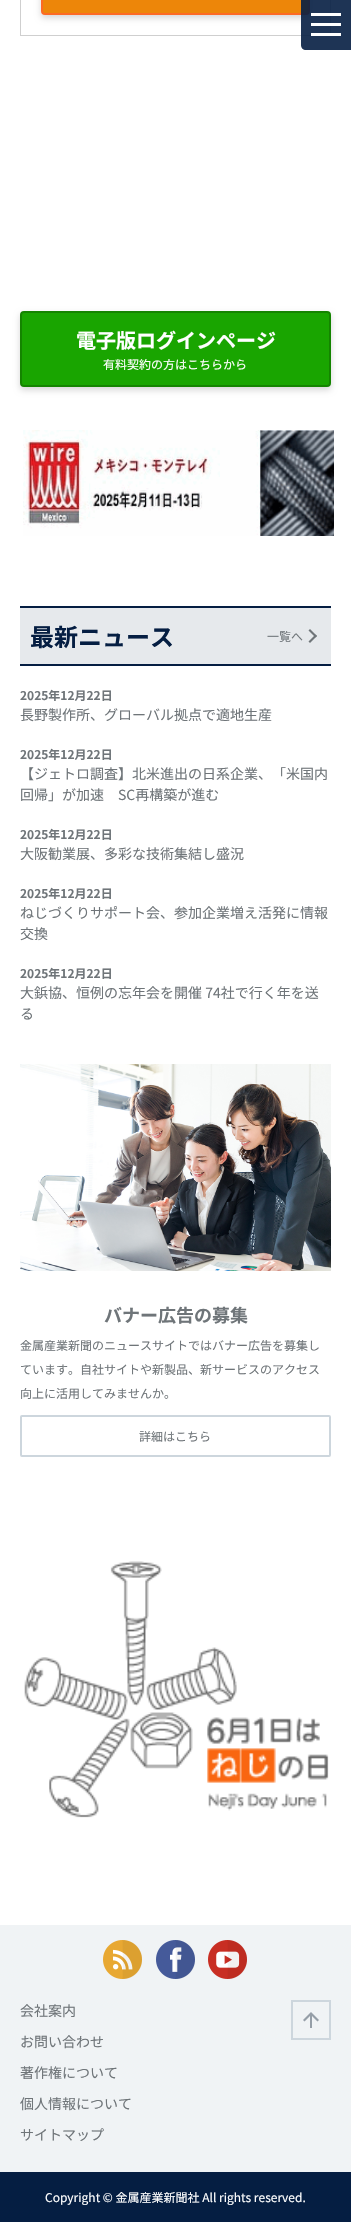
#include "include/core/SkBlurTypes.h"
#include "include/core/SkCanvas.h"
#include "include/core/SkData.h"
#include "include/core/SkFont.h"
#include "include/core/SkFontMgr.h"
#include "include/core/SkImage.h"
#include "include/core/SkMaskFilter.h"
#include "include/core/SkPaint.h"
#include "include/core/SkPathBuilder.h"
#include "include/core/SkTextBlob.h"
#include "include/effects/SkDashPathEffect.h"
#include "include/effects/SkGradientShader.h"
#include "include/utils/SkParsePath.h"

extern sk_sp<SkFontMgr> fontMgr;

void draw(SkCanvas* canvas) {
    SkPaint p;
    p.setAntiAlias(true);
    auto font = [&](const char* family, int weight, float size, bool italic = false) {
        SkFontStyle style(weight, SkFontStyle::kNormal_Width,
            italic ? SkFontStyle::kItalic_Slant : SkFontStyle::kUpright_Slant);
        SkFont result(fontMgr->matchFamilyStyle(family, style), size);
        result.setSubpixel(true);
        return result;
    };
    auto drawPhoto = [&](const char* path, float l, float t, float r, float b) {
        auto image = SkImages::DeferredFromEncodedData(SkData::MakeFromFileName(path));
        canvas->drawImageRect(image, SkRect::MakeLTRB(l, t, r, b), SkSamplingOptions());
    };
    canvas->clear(0xFFFFFFFF);
    p.setStyle(SkPaint::kStroke_Style);
    p.setStrokeWidth(1);
    p.setColor(0xFFCFCFCF);
    canvas->drawRect(SkRect::MakeLTRB(20.5f, -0.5f, 330.5f, 35.5f), p);
    p.setStyle(SkPaint::kFill_Style);
    p.setColor(0x29000000);
    p.setMaskFilter(SkMaskFilter::MakeBlur(kNormal_SkBlurStyle, 3));
    canvas->drawRoundRect(SkRect::MakeLTRB(41, -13, 310, 18), 4, 4, p);
    p.setMaskFilter(nullptr);
    p.setColor(0xFFED8609);
    canvas->drawRoundRect(SkRect::MakeLTRB(42, -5, 309, 14), 3, 3, p);
    p.setStyle(SkPaint::kStroke_Style);
    p.setStrokeWidth(2);
    p.setColor(0xFFFC6A25);
    canvas->drawRoundRect(SkRect::MakeLTRB(42, -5, 309, 14), 3, 3, p);
    p.setStyle(SkPaint::kFill_Style);
    p.setColor(0xE6051E42);
    canvas->drawPath(SkPathBuilder().moveTo(301, 0).lineTo(351, 0).lineTo(351, 50).lineTo(306, 50).cubicTo(303, 50, 301, 48, 301, 45).close().detach(), p);
    {
        const struct { float l, t, r, b; SkColor color; } items[] = {
            {311, 13, 341, 16, 0xFFFFFFFF},
            {311, 23, 341, 26, 0xFFFFFFFF},
            {311, 33, 341, 36, 0xFFFFFFFF},
        };
        for (auto [l, t, r, b, color] : items) {
            p.setColor(color);
            canvas->drawRect(SkRect::MakeLTRB(l, t, r, b), p);
        }
    }
    p.setColor(0x29000000);
    p.setMaskFilter(SkMaskFilter::MakeBlur(kNormal_SkBlurStyle, 3));
    canvas->drawRoundRect(SkRect::MakeLTRB(20, 314, 331, 390), 4, 4, p);
    p.setMaskFilter(nullptr);
    p.setColor(0xFF19A500);
    canvas->drawRoundRect(SkRect::MakeLTRB(21, 312, 330, 386), 3, 3, p);
    p.setStyle(SkPaint::kStroke_Style);
    p.setColor(0xFF148400);
    canvas->drawRoundRect(SkRect::MakeLTRB(21, 312, 330, 386), 3, 3, p);
    auto font1 = font("Noto Sans JP", 700, 20);
    p.setStyle(SkPaint::kFill_Style);
    p.setColor(0xFFFFFFFF);
    canvas->drawString("電子版ログインページ", 76, 348, font1, p);
    auto font2 = font("Noto Sans JP", 400, 12);
    canvas->drawString("有料契約の方はこちらから", 103, 369, font2, p);
    drawPhoto("media/1.png", 23, 430, 334, 536);
    {
        const struct { float l, t, r, b; SkColor color; } items[] = {
            {20, 608, 331, 664, 0xFFE6E9EC},
            {20, 606, 331, 608, 0xFF051E42},
            {20, 664, 331, 666, 0xFF051E42},
        };
        for (auto [l, t, r, b, color] : items) {
            p.setColor(color);
            canvas->drawRect(SkRect::MakeLTRB(l, t, r, b), p);
        }
    }
    auto font3 = font("Noto Sans JP", 700, 24);
    canvas->drawString("最新ニュース", 30, 646, font3, p);
    p.setColor(0xFF6F7579);
    canvas->drawString("一覧へ", 267, 641, font2, p);
    canvas->drawPath(SkPathBuilder().moveTo(310, 629).lineTo(317, 636).lineTo(315.5f, 637.5f).lineTo(308.5f, 630.5f).close().detach(), p);
    canvas->drawPath(SkPathBuilder().moveTo(315.5f, 634.5f).lineTo(317, 636).lineTo(310, 643).lineTo(308.5f, 641.5f).close().detach(), p);
    auto font4 = font("Noto Sans JP", 700, 12);
    canvas->drawString("2025年12月22日", 20, 700, font4, p);
    auto font5 = font("Noto Sans JP", 400, 14);
    canvas->drawString("長野製作所、グローバル拠点で適地生産", 20, 720, font5, p);
    canvas->drawString("2025年12月22日", 20, 759, font4, p);
    canvas->drawString("【ジェトロ調査】北米進出の日系企業、「米国内", 20, 779, font5, p);
    canvas->drawString("回帰」が加速　SC再構築が進む", 20, 800, font5, p);
    canvas->drawString("2025年12月22日", 20, 839, font4, p);
    canvas->drawString("大阪勧業展、多彩な技術集結し盛況", 20, 859, font5, p);
    canvas->drawString("2025年12月22日", 20, 898, font4, p);
    canvas->drawString("ねじづくりサポート会、参加企業増え活発に情報", 20, 918, font5, p);
    canvas->drawString("交換", 20, 939, font5, p);
    canvas->drawString("2025年12月22日", 20, 978, font4, p);
    canvas->drawString("大鋲協、恒例の忘年会を開催 74社で行く年を送", 20, 998, font5, p);
    canvas->drawString("る", 20, 1019, font5, p);
    drawPhoto("media/2.png", 20, 1064, 331, 1271);
    auto font6 = font("Noto Sans JP", 700, 18);
    canvas->drawString("バナー広告の募集", 104, 1322, font6, p);
    {
        const struct { const char* s; float x, y; } items[] = {
            {"金属産業新聞のニュースサイトではバナー広告を募集し", 20, 1350},
            {"ています。自社サイトや新製品、新サービスのアクセス", 20, 1374},
            {"向上に活用してみませんか。", 20, 1398},
        };
        for (auto [s, x, y] : items) {
            canvas->drawString(s, x, y, font2, p);
        }
    }
    p.setStyle(SkPaint::kStroke_Style);
    p.setColor(0xFFCDD6DD);
    canvas->drawRoundRect(SkRect::MakeLTRB(21, 1416, 330, 1456), 1, 1, p);
    p.setStyle(SkPaint::kFill_Style);
    p.setColor(0xFF6F7579);
    canvas->drawString("詳細はこちら", 139, 1441, font2, p);
    drawPhoto("media/3.png", 24, 1561, 329, 1818);
    p.setColor(0xFFF0F3F5);
    canvas->drawRect(SkRect::MakeLTRB(0, 1925, 351, 2172), p);
    drawPhoto("media/4.png", 103, 1940, 142, 1979);
    drawPhoto("media/5.png", 156, 1940, 195, 1979);
    drawPhoto("media/6.png", 208, 1940, 247, 1979);
    p.setColor(0xFF6F7579);
    {
        const struct { const char* s; float x, y; } items[] = {
            {"会社案内", 20, 2016},
            {"お問い合わせ", 20, 2047},
            {"著作権について", 20, 2078},
            {"個人情報について", 20, 2109},
            {"サイトマップ", 20, 2140},
        };
        for (auto [s, x, y] : items) {
            canvas->drawString(s, x, y, font5, p);
        }
    }
    p.setStyle(SkPaint::kStroke_Style);
    p.setColor(0xFFCDD6DD);
    canvas->drawRect(SkRect::MakeLTRB(292, 2001, 330, 2039), p);
    p.setStyle(SkPaint::kFill_Style);
    p.setColor(0xFF959EA7);
    canvas->drawPath(SkPathBuilder().moveTo(303, 2020).lineTo(304.5f, 2021.5f).lineTo(310, 2016).lineTo(310, 2028).lineTo(312, 2028).lineTo(312, 2016).lineTo(317.5f, 2021.5f).lineTo(319, 2020).lineTo(311, 2012).close().detach(), p);
    p.setColor(0xFF051E42);
    canvas->drawRect(SkRect::MakeLTRB(0, 2172, 351, 2222), p);
    p.setColor(0xFFFFFFFF);
    canvas->drawString("Copyright © 金属産業新聞社 All rights reserved.", 45, 2202, font2, p);
}
